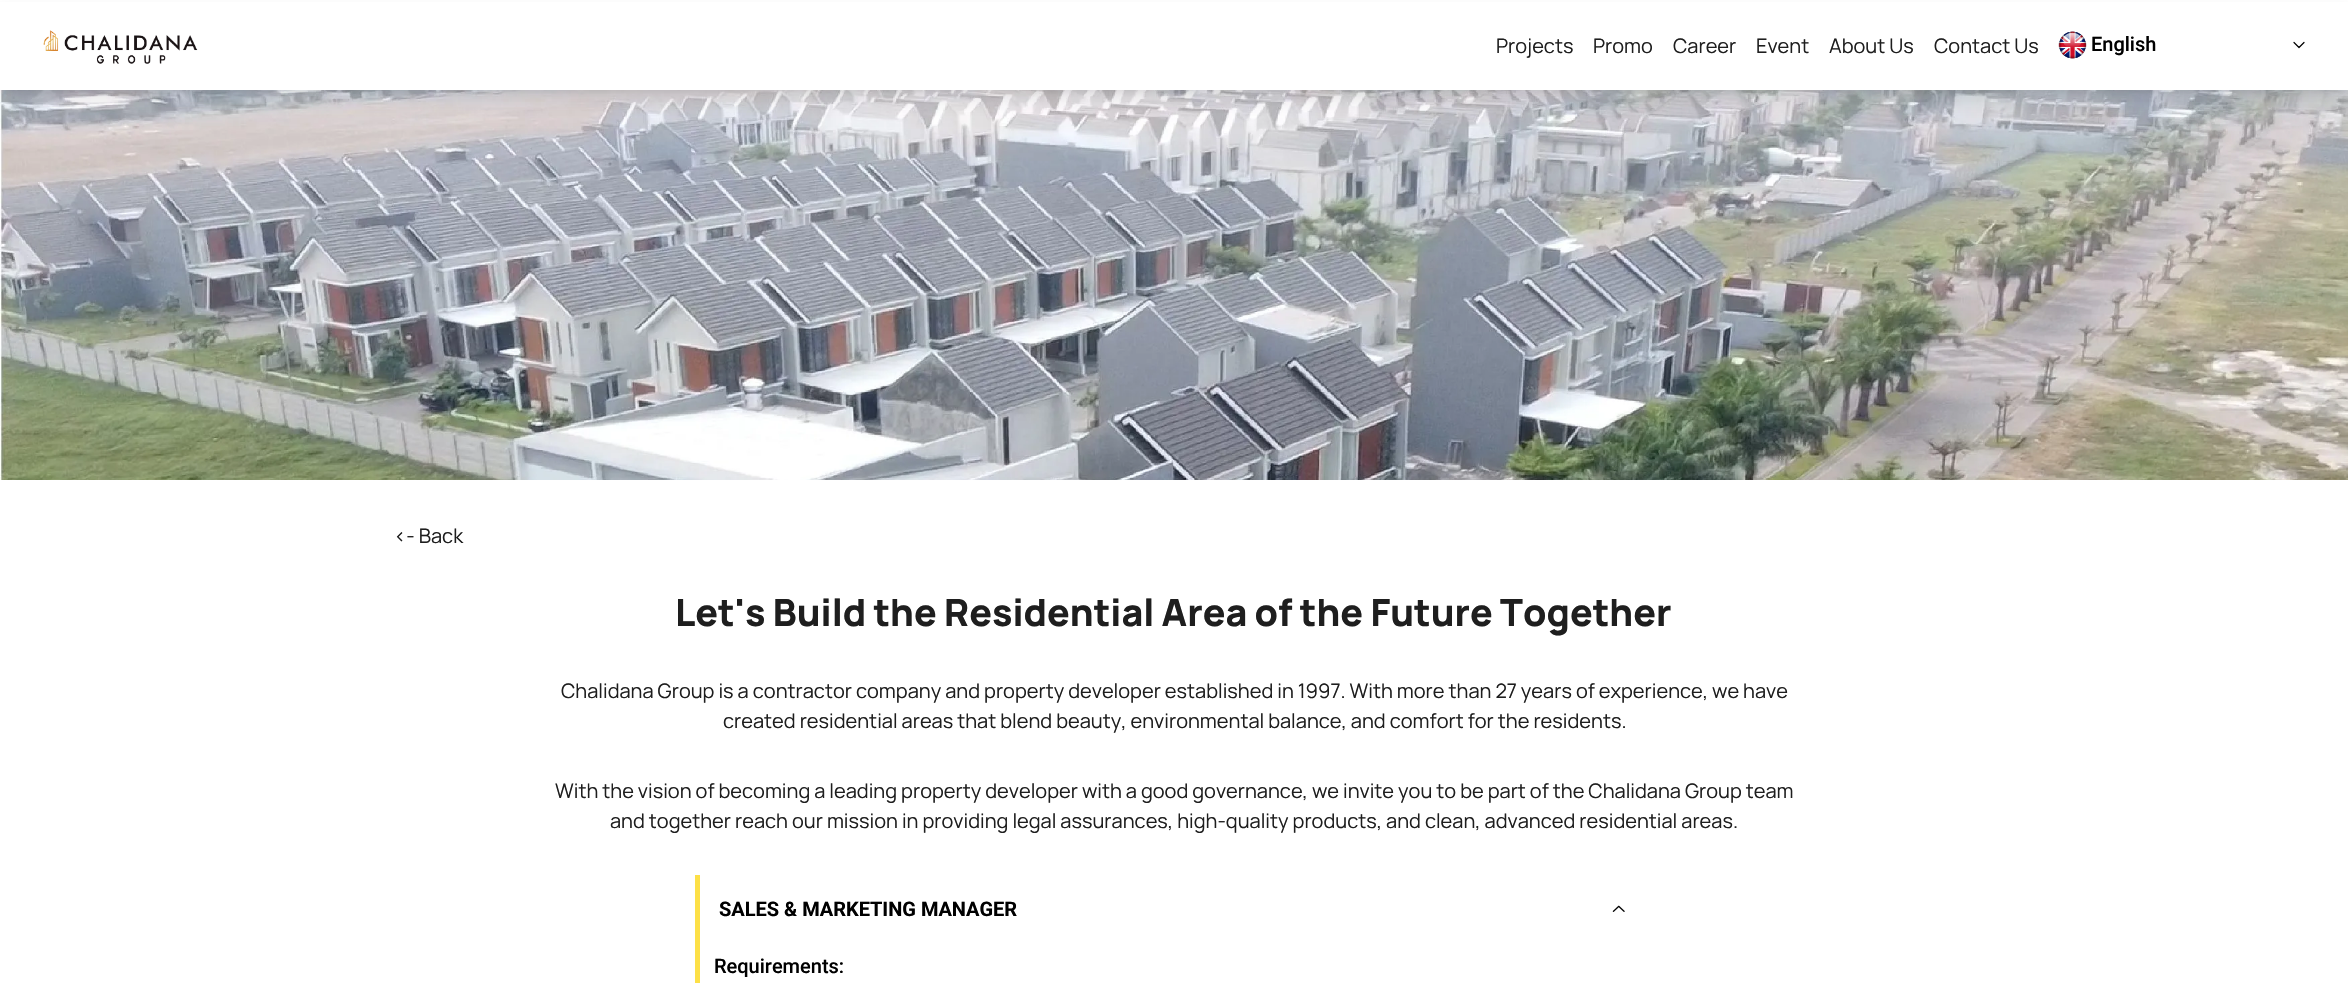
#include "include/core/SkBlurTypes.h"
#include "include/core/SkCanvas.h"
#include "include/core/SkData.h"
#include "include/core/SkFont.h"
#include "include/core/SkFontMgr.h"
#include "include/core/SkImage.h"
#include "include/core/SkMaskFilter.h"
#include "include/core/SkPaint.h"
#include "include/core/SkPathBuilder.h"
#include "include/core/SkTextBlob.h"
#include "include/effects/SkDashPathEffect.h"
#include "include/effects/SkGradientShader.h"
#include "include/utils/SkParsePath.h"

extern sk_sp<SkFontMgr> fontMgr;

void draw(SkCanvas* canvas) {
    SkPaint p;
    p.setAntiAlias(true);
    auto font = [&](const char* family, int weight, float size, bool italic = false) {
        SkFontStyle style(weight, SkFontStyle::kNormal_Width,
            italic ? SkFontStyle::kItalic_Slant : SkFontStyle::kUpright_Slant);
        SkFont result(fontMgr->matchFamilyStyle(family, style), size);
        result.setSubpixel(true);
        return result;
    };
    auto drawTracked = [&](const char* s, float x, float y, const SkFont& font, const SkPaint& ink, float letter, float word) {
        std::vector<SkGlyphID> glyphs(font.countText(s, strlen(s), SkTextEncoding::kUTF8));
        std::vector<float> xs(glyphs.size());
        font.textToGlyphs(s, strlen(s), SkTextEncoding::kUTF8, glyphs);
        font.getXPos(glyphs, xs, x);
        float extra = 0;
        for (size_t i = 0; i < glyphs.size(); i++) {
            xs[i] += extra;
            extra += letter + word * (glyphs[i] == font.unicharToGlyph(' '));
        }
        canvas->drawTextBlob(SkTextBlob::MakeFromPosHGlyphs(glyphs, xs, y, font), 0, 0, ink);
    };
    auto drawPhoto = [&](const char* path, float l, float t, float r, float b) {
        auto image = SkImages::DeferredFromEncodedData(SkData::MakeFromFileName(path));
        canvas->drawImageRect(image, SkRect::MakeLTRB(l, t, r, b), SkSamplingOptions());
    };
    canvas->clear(0xFFFFFFFF);
    drawPhoto("media/3.png", 0, 90, 2348, 480);
    p.setColor(0x1A000000);
    p.setMaskFilter(SkMaskFilter::MakeBlur(kNormal_SkBlurStyle, 4));
    canvas->drawRect(SkRect::MakeLTRB(5, 10, 2344, 90), p);
    p.setMaskFilter(nullptr);
    p.setMaskFilter(SkMaskFilter::MakeBlur(kNormal_SkBlurStyle, 9.5f));
    canvas->drawRect(SkRect::MakeLTRB(4, 16, 2345, 99), p);
    p.setMaskFilter(nullptr);
    p.setColor(0xFFFFFFFF);
    canvas->drawRect(SkRect::MakeLTRB(0, 2, 2348, 90), p);
    drawPhoto("media/1.png", 43, 30, 198, 64);
    auto font1 = font("Manrope", 400, 20);
    p.setColor(0xFF1E1E1E);
    {
        const struct { const char* s; float x, y; } items[] = {
            {"Projects", 1496, 53},
            {"Promo", 1593, 53},
            {"Career", 1673, 53},
            {"Event", 1756, 53},
            {"About Us", 1829, 53},
            {"Contact Us", 1934, 53},
        };
        for (auto [s, x, y] : items) {
            canvas->drawString(s, x, y, font1, p);
        }
    }
    drawPhoto("media/2.png", 2058, 31, 2087, 59);
    auto font2 = font("Roboto", 500, 20);
    p.setColor(0xFF000000);
    canvas->drawString("English", 2091, 51, font2, p);
    p.setStyle(SkPaint::kStroke_Style);
    p.setStrokeWidth(1.2f);
    p.setStrokeCap(SkPaint::kRound_Cap);
    p.setStrokeJoin(SkPaint::kRound_Join);
    canvas->drawPath(SkPathBuilder().moveTo(2294, 42.5f).lineTo(2299, 47.5f).lineTo(2304, 42.5f).detach(), p);
    p.setStyle(SkPaint::kFill_Style);
    p.setColor(0xFF1E1E1E);
    canvas->drawString("<- Back", 394, 543, font1, p);
    auto font3 = font("Manrope", 800, 37.5f);
    drawTracked("Let's Build the Residential Area of the Future Together", 675, 626, font3, p, 0, -0.25f);
    {
        const struct { const char* s; float x, y; } items[] = {
            {"Chalidana Group is a contractor company and property developer established in 1997. With more than 27 years of experience, we have", 561, 698},
            {"created residential areas that blend beauty, environmental balance, and comfort for the residents.", 723, 728},
            {"With the vision of becoming a leading property developer with a good governance, we invite you to be part of the Chalidana Group team", 555, 798},
            {"and together reach our mission in providing legal assurances, high-quality products, and clean, advanced residential areas.", 610, 828},
        };
        for (auto [s, x, y] : items) {
            canvas->drawString(s, x, y, font1, p);
        }
    }
    p.setColor(0xFFFDE047);
    canvas->drawRect(SkRect::MakeLTRB(695, 875, 700, 983), p);
    auto font4 = font("Roboto", 700, 20);
    p.setColor(0xFF000000);
    canvas->drawString("SALES & MARKETING MANAGER", 719, 916, font4, p);
    drawPhoto("media/4.png", 1612, 905, 1625, 912);
    canvas->drawString("Requirements:", 714, 973, font2, p);
}
